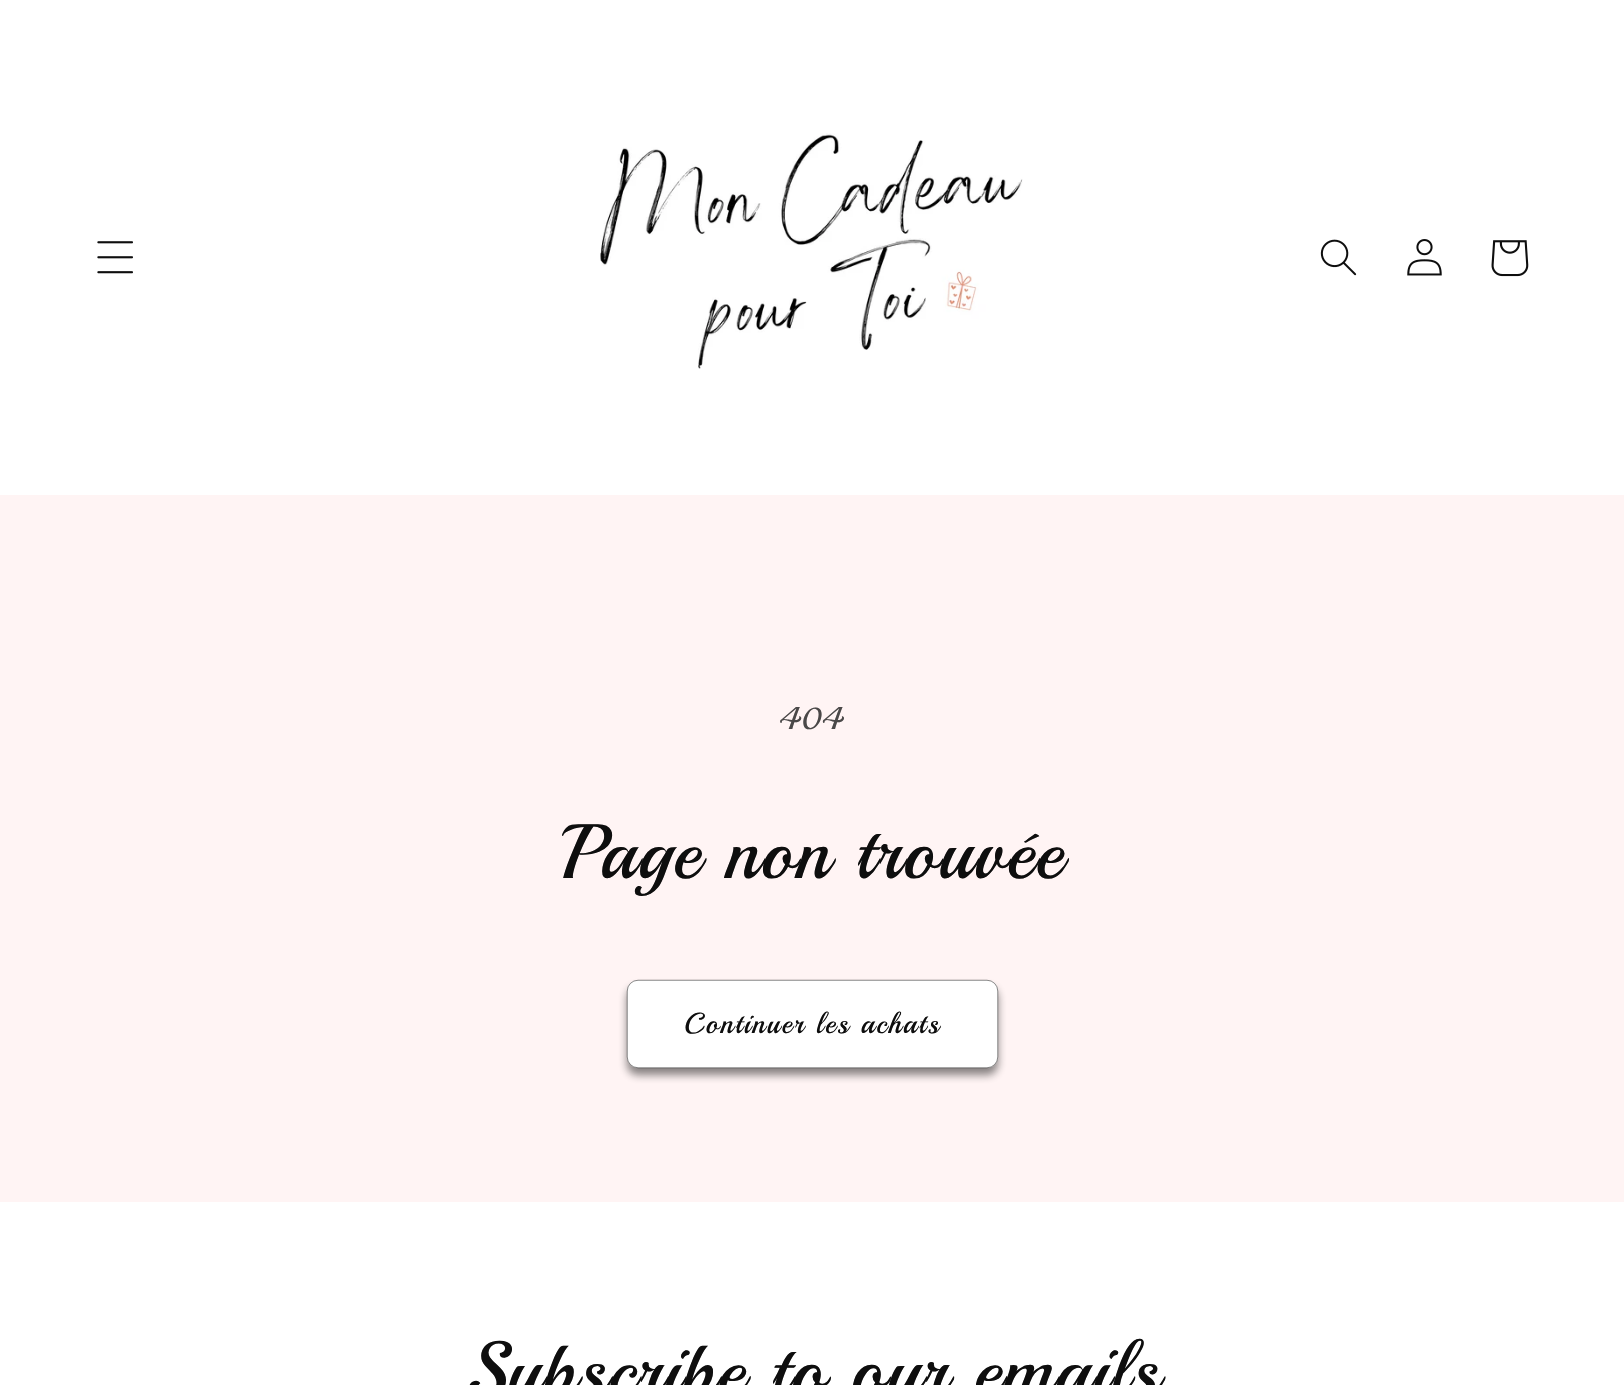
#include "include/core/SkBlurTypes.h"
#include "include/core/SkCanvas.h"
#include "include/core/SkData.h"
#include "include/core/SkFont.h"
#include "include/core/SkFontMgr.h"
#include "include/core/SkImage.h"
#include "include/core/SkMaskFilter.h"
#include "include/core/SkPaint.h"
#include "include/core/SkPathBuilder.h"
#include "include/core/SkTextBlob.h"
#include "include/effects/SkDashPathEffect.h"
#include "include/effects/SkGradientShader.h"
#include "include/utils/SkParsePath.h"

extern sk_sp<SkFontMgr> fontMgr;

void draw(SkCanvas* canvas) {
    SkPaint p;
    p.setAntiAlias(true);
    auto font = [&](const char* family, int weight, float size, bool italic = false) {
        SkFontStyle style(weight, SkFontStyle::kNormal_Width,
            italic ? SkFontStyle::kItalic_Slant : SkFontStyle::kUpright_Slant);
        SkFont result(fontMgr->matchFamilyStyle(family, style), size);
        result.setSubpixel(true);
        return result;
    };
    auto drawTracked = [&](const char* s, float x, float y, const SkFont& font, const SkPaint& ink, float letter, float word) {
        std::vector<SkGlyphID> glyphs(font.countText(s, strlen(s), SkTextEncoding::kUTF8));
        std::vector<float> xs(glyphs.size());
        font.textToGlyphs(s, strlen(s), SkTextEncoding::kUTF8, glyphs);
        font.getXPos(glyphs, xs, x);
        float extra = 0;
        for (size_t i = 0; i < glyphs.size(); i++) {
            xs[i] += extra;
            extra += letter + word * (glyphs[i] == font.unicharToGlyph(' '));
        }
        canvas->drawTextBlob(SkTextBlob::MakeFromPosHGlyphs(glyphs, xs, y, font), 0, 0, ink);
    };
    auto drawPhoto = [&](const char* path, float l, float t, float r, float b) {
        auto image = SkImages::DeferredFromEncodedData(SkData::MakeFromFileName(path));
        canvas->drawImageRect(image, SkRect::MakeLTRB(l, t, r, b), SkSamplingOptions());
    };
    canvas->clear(0xFFFFF4F4);
    p.setColor(0xFFFFFFFF);
    canvas->drawRect(SkRect::MakeLTRB(0, 0, 1624, 495), p);
    drawPhoto("media/1.png", 97, 241, 133, 274);
    drawPhoto("media/2.png", 600, 133, 1023, 369);
    drawPhoto("media/3.png", 1320, 239, 1357, 276);
    drawPhoto("media/4.png", 1407, 239, 1442, 276);
    drawPhoto("media/5.png", 1491, 240, 1529, 277);
    auto font1 = font("Playball", 400, 31);
    p.setColor(0xFF4A4848);
    drawTracked("404", 780, 729, font1, p, 1.2f, 0);
    auto font2 = font("Playball", 400, 77);
    p.setColor(0xFF0E0E0E);
    drawTracked("Page non trouvée", 561, 878, font2, p, 1.2f, 0);
    p.setColor(0x800E0E0E);
    p.setMaskFilter(SkMaskFilter::MakeBlur(kNormal_SkBlurStyle, 4.5f));
    canvas->drawRoundRect(SkRect::MakeLTRB(627, 987, 998, 1075), 11, 11, p);
    p.setMaskFilter(nullptr);
    p.setColor(0xFFFFFFFF);
    canvas->drawRoundRect(SkRect::MakeLTRB(627, 980, 998, 1068), 11, 11, p);
    p.setStyle(SkPaint::kStroke_Style);
    p.setStrokeWidth(0.5f);
    p.setColor(0xFF0E0E0E);
    canvas->drawRoundRect(SkRect::MakeLTRB(627.25f, 980.25f, 997.75f, 1067.75f), 10.75f, 10.75f, p);
    auto font3 = font("Playball", 400, 28.9f);
    p.setStyle(SkPaint::kFill_Style);
    drawTracked("Continuer les achats", 684, 1033, font3, p, 1.9f, 0);
    p.setColor(0xFFFFFFFF);
    canvas->drawRect(SkRect::MakeLTRB(0, 1202, 1624, 1385), p);
    p.setColor(0xFF0E0E0E);
    drawTracked("Subscribe to our emails", 465, 1396, font2, p, 1.2f, 0);
}
